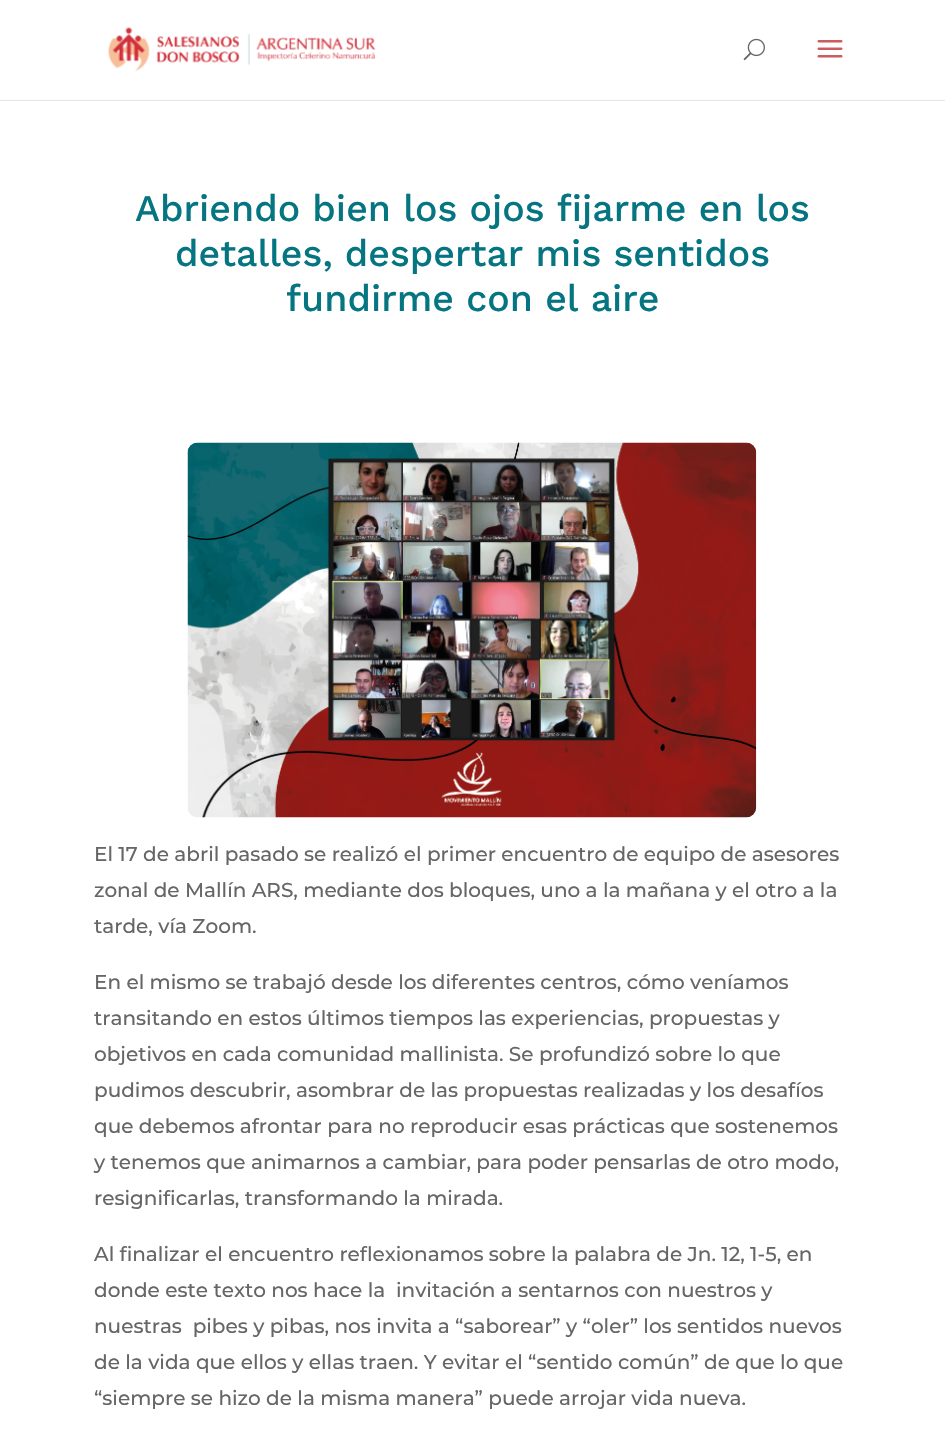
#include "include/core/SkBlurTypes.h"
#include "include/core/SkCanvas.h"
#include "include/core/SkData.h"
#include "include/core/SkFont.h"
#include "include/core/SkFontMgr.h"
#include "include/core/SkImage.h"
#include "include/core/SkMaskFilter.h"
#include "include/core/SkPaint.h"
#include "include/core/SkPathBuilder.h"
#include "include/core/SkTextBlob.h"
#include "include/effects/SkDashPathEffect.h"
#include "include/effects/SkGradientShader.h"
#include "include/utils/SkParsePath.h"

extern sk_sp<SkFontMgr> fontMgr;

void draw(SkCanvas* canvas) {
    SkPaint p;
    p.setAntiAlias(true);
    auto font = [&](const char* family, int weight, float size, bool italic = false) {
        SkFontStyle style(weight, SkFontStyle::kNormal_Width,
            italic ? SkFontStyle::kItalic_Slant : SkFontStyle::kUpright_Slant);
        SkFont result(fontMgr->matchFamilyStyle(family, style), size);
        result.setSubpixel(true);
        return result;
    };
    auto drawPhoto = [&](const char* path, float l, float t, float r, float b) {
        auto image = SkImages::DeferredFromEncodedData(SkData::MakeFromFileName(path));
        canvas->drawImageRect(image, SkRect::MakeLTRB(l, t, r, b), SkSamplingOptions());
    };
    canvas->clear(0xFFFFFFFF);
    p.setColor(0xFFE6E6E6);
    canvas->drawRect(SkRect::MakeLTRB(0, 100, 945, 101), p);
    drawPhoto("media/1.png", 108, 27, 376, 71);
    drawPhoto("media/2.png", 743, 38, 765, 61);
    drawPhoto("media/3.png", 817, 40, 843, 58);
    auto font1 = font("Work Sans", 500, 37.5f);
    p.setColor(0xFF057582);
    {
        const struct { const char* s; float x, y; } items[] = {
            {"Abriendo bien los ojos fijarme en los", 135, 221},
            {"detalles, despertar mis sentidos", 175, 266},
            {"fundirme con el aire", 286, 311},
        };
        for (auto [s, x, y] : items) {
            canvas->drawString(s, x, y, font1, p);
        }
    }
    drawPhoto("media/4.png", 187, 442, 757, 818);
    auto font2 = font("Montserrat", 500, 20);
    p.setColor(0xFF666666);
    {
        const struct { const char* s; float x, y; } items[] = {
            {"El 17 de abril pasado se realizó el primer encuentro de equipo de asesores", 94, 861},
            {"zonal de Mallín ARS, mediante dos bloques, uno a la mañana y el otro a la", 94, 897},
            {"tarde, vía Zoom.", 94, 933},
            {"En el mismo se trabajó desde los diferentes centros, cómo veníamos", 94, 989},
            {"transitando en estos últimos tiempos las experiencias, propuestas y", 94, 1025},
            {"objetivos en cada comunidad mallinista. Se profundizó sobre lo que", 94, 1061},
            {"pudimos descubrir, asombrar de las propuestas realizadas y los desafíos", 94, 1097},
            {"que debemos afrontar para no reproducir esas prácticas que sostenemos", 94, 1133},
            {"y tenemos que animarnos a cambiar, para poder pensarlas de otro modo,", 94, 1169},
            {"resignificarlas, transformando la mirada.", 94, 1205},
            {"Al finalizar el encuentro reflexionamos sobre la palabra de Jn. 12, 1-5, en", 94, 1261},
            {"donde este texto nos hace la  invitación a sentarnos con nuestros y", 94, 1297},
            {"nuestras  pibes y pibas, nos invita a “saborear” y “oler” los sentidos nuevos", 94, 1333},
            {"de la vida que ellos y ellas traen. Y evitar el “sentido común” de que lo que", 94, 1369},
            {"“siempre se hizo de la misma manera” puede arrojar vida nueva.", 94, 1405},
        };
        for (auto [s, x, y] : items) {
            canvas->drawString(s, x, y, font2, p);
        }
    }
}
